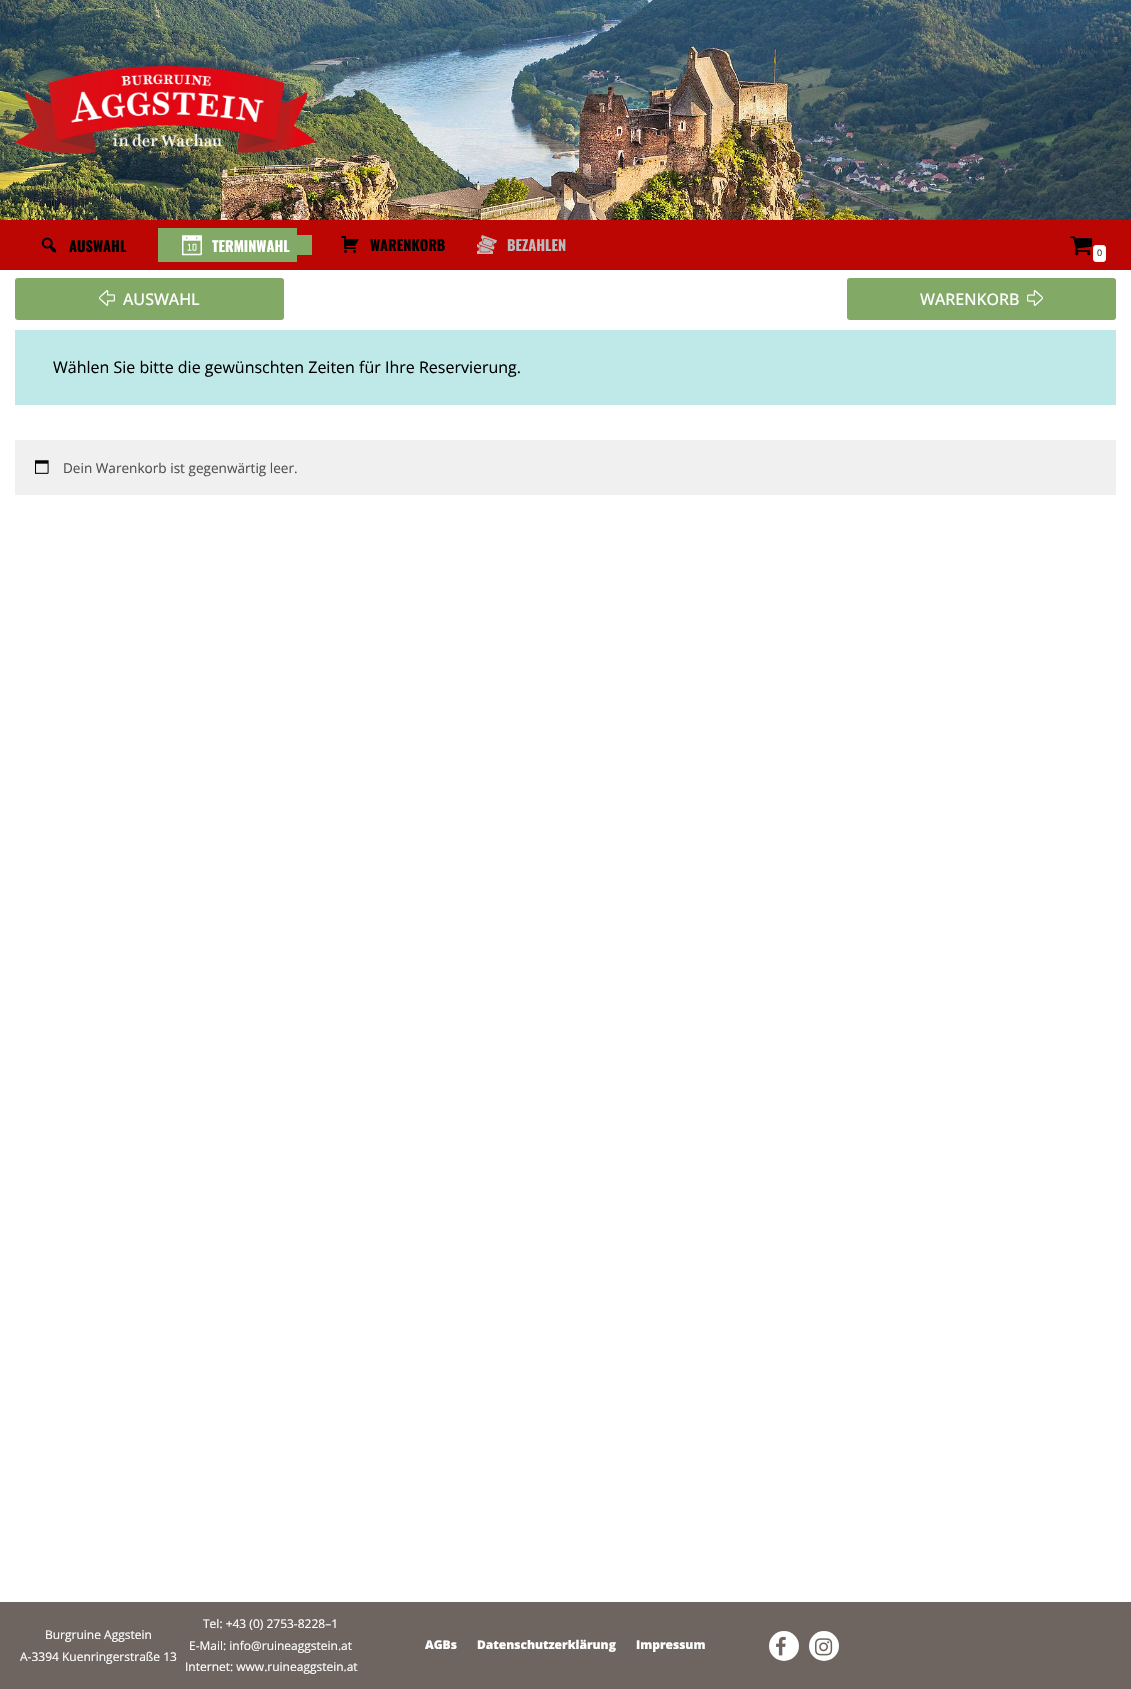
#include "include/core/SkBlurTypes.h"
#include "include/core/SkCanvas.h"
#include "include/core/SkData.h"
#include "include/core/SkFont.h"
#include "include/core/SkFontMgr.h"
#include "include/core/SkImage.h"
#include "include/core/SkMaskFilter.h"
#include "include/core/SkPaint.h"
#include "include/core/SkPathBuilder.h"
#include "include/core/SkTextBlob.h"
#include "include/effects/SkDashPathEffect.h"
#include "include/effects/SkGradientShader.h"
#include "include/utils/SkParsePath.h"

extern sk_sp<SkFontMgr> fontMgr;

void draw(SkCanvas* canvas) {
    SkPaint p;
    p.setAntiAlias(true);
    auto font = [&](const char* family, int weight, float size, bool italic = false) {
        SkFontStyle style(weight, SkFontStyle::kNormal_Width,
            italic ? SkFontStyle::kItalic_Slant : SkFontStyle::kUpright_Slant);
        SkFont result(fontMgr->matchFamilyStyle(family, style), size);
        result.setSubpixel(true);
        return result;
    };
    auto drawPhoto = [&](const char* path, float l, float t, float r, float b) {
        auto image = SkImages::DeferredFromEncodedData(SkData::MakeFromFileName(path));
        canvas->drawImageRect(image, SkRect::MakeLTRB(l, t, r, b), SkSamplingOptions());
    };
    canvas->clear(0xFFFFFFFF);
    drawPhoto("media/1.png", 0, 0, 1131, 220);
    drawPhoto("media/2.png", 15, 66, 316, 154);
    p.setColor(0xFFBB0604);
    canvas->drawRect(SkRect::MakeLTRB(0, 220, 1131, 270), p);
    drawPhoto("media/3.png", 41, 237, 57, 253);
    auto font1 = font("Oswald", 700, 14.5f);
    p.setColor(0xFF000000);
    canvas->drawString("AUSWAHL", 69, 252, font1, p);
    p.setColor(0xFF83A967);
    canvas->drawRect(SkRect::MakeLTRB(158, 228, 297, 262), p);
    canvas->drawRect(SkRect::MakeLTRB(297, 235, 312, 255), p);
    drawPhoto("media/4.png", 182, 235, 202, 256);
    p.setColor(0xFFFFFFFF);
    canvas->drawString("TERMINWAHL", 212, 252, font1, p);
    drawPhoto("media/5.png", 341, 236, 359, 253);
    p.setColor(0xFF000000);
    canvas->drawString("WARENKORB", 370, 251, font1, p);
    drawPhoto("media/6.png", 477, 235, 497, 254);
    p.setColor(0xFFBBBBBB);
    canvas->drawString("BEZAHLEN", 507, 251, font1, p);
    drawPhoto("media/7.png", 1069, 236, 1093, 256);
    p.setColor(0xFFFFFFFF);
    canvas->drawRoundRect(SkRect::MakeLTRB(1093.5f, 245.5f, 1105.5f, 261.5f), 2.5f, 2.5f, p);
    p.setStyle(SkPaint::kStroke_Style);
    p.setStrokeWidth(1);
    p.setColor(0xFFF5F5F5);
    canvas->drawRoundRect(SkRect::MakeLTRB(1093.5f, 245.5f, 1105.5f, 261.5f), 2.5f, 2.5f, p);
    auto font2 = font("Open Sans", 400, 9);
    p.setStyle(SkPaint::kFill_Style);
    p.setColor(0xFF333333);
    canvas->drawString("0", 1097, 256, font2, p);
    p.setColor(0xFF83A967);
    canvas->drawRoundRect(SkRect::MakeLTRB(15, 278, 284, 320), 3, 3, p);
    drawPhoto("media/8.png", 99, 290, 115, 306);
    auto font3 = font("Open Sans", 500, 16);
    p.setColor(0xFFFFFFFF);
    canvas->drawString("AUSWAHL", 123, 305, font3, p);
    p.setColor(0xFF83A967);
    canvas->drawRoundRect(SkRect::MakeLTRB(847, 278, 1116, 320), 3, 3, p);
    p.setColor(0xFFFFFFFF);
    canvas->drawString("WARENKORB", 920, 305, font3, p);
    drawPhoto("media/9.png", 1027, 290, 1043, 306);
    p.setColor(0xFFBEE9E8);
    canvas->drawRect(SkRect::MakeLTRB(15, 330, 1116, 405), p);
    auto font4 = font("Open Sans", 400, 16);
    p.setColor(0xFF000000);
    canvas->drawString("Wählen Sie bitte die gewünschten Zeiten für Ihre Reservierung.", 53, 373, font4, p);
    p.setColor(0xFFF0F0F0);
    canvas->drawRect(SkRect::MakeLTRB(15, 440, 1116, 495), p);
    drawPhoto("media/10.png", 35, 460, 49, 474);
    auto font5 = font("Open Sans", 400, 13.6f);
    p.setColor(0xFF515151);
    canvas->drawString("Dein Warenkorb ist gegenwärtig leer.", 63, 473, font5, p);
    p.setColor(0xFF6E6560);
    canvas->drawRect(SkRect::MakeLTRB(0, 1602, 1131, 1689), p);
    auto font6 = font("Open Sans", 400, 12);
    p.setColor(0xFFFFFFFF);
    {
        const struct { const char* s; float x, y; } items[] = {
            {"Burgruine Aggstein", 45, 1639},
            {"A-3394 Kuenringerstraße 13", 20, 1661},
            {"Tel: +43 (0) 2753-8228–1", 203, 1628},
            {"E-Mail: info@ruineaggstein.at", 189, 1650},
            {"Internet: www.ruineaggstein.at", 185, 1671},
        };
        for (auto [s, x, y] : items) {
            canvas->drawString(s, x, y, font6, p);
        }
    }
    auto font7 = font("Open Sans", 800, 12);
    {
        const struct { const char* s; float x, y; } items[] = {
            {"AGBs", 425, 1649},
            {"Datenschutzerklärung", 477, 1649},
            {"Impressum", 636, 1649},
        };
        for (auto [s, x, y] : items) {
            canvas->drawString(s, x, y, font7, p);
        }
    }
    canvas->drawCircle(784, 1646, 15, p);
    drawPhoto("media/11.png", 776, 1636, 786, 1656);
    canvas->drawCircle(824, 1646, 15, p);
    drawPhoto("media/12.png", 815, 1638, 833, 1656);
}
